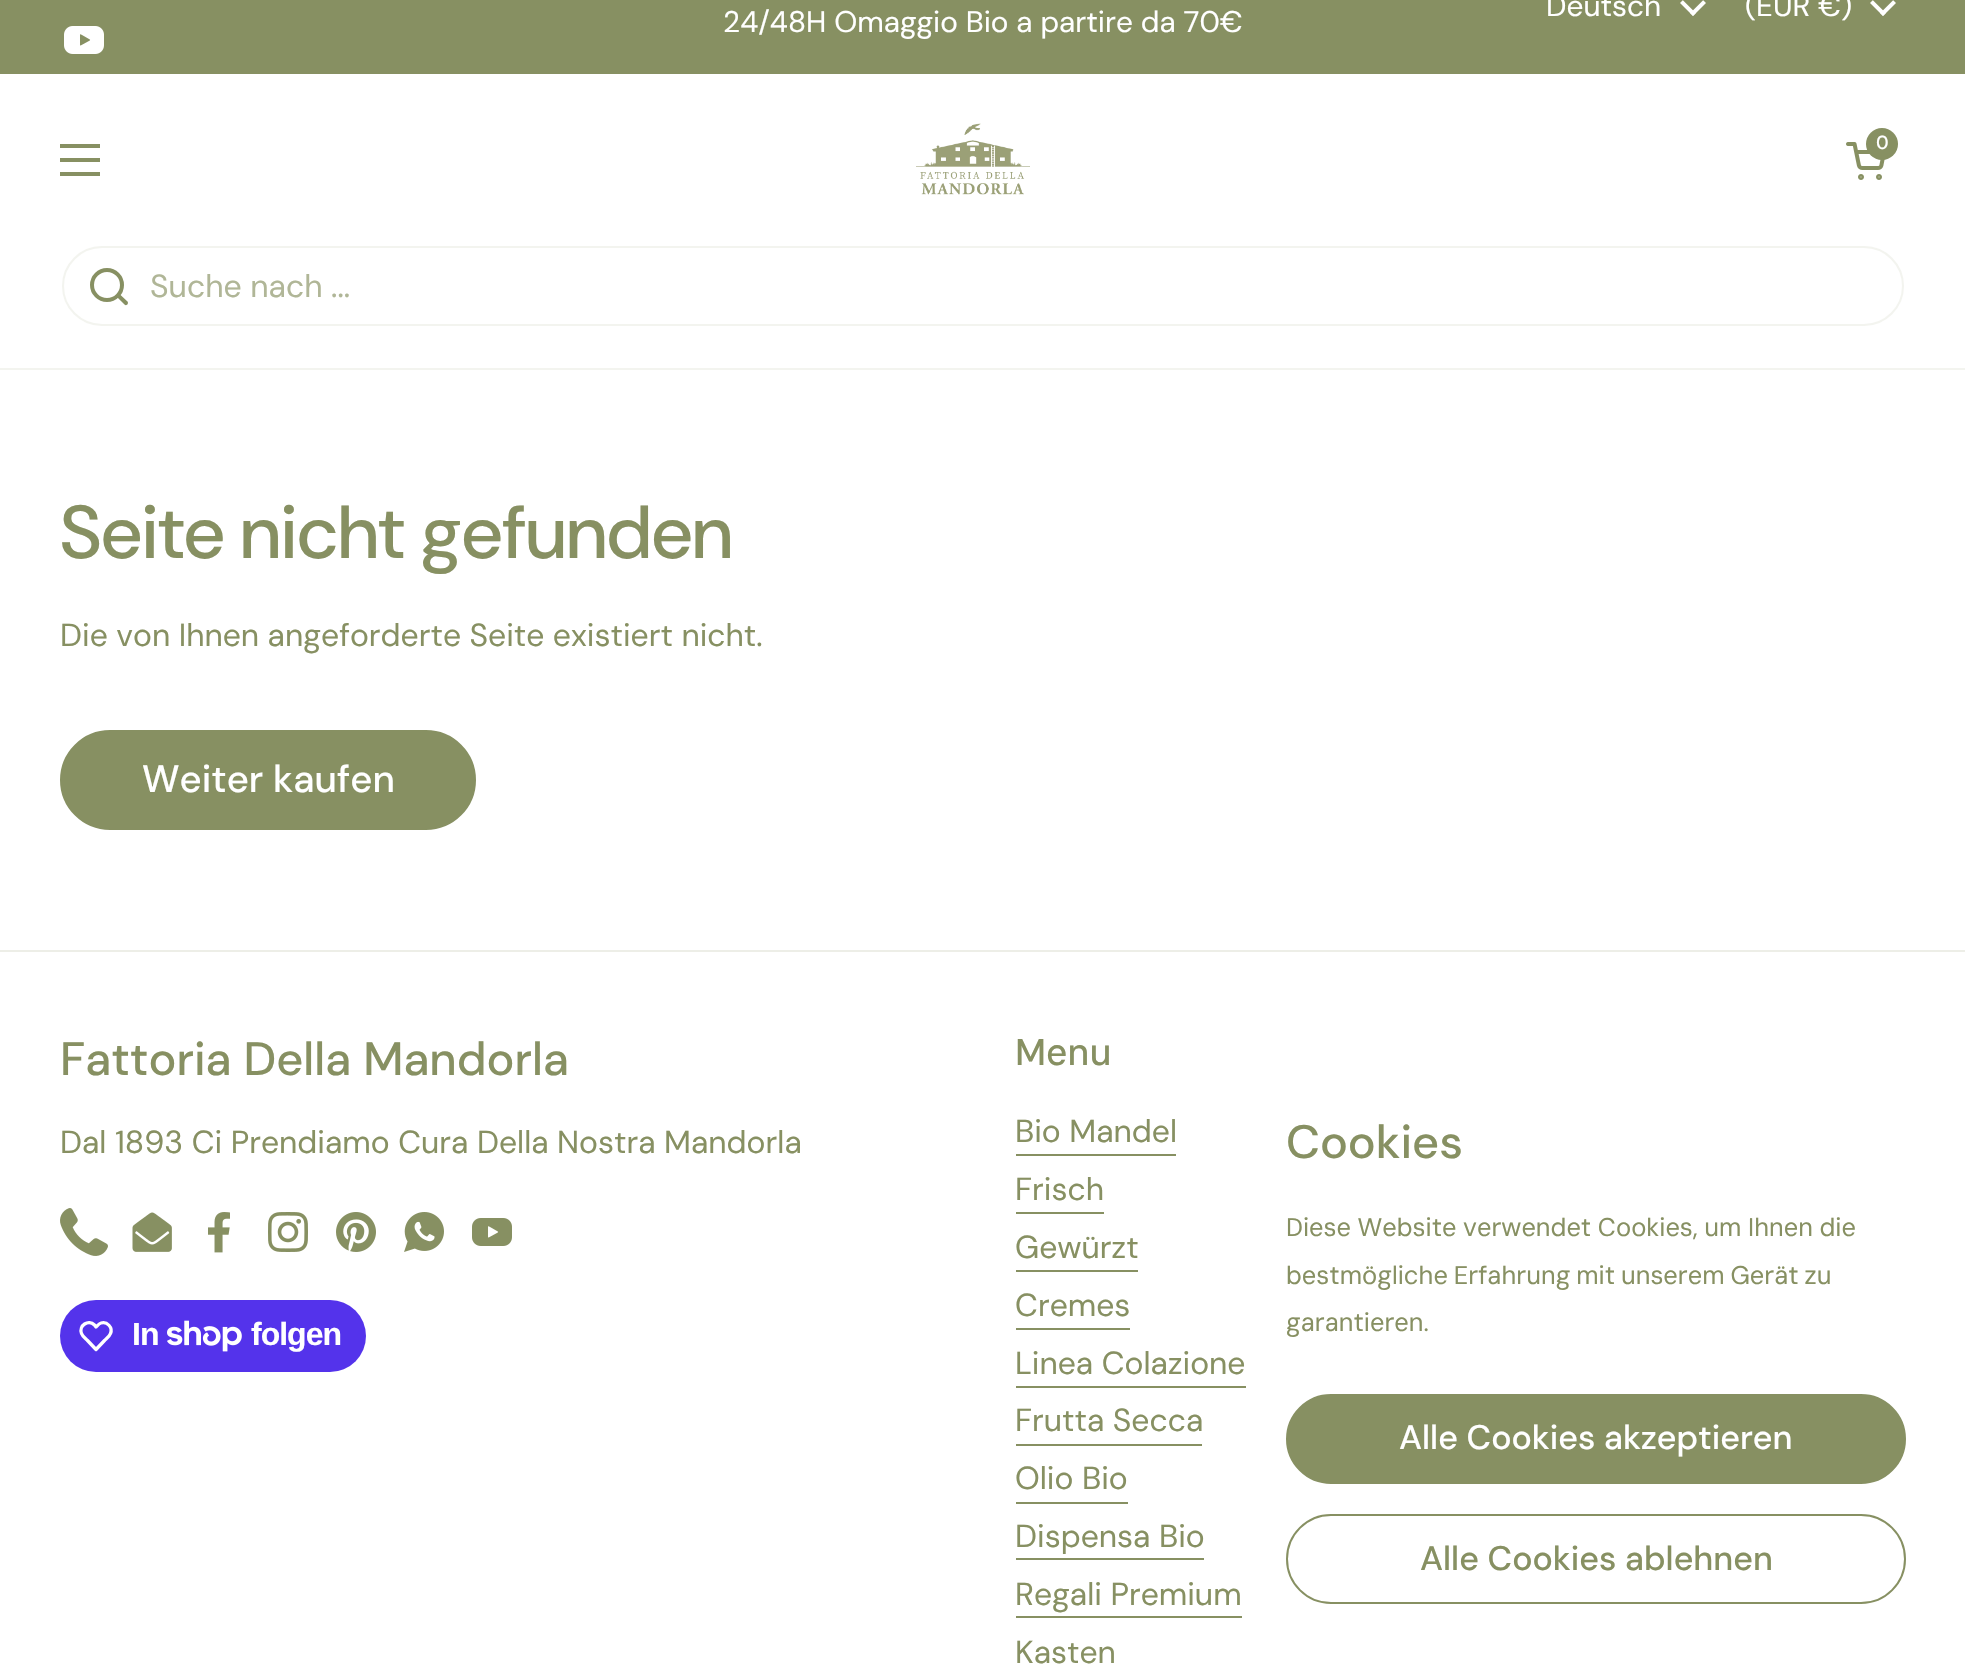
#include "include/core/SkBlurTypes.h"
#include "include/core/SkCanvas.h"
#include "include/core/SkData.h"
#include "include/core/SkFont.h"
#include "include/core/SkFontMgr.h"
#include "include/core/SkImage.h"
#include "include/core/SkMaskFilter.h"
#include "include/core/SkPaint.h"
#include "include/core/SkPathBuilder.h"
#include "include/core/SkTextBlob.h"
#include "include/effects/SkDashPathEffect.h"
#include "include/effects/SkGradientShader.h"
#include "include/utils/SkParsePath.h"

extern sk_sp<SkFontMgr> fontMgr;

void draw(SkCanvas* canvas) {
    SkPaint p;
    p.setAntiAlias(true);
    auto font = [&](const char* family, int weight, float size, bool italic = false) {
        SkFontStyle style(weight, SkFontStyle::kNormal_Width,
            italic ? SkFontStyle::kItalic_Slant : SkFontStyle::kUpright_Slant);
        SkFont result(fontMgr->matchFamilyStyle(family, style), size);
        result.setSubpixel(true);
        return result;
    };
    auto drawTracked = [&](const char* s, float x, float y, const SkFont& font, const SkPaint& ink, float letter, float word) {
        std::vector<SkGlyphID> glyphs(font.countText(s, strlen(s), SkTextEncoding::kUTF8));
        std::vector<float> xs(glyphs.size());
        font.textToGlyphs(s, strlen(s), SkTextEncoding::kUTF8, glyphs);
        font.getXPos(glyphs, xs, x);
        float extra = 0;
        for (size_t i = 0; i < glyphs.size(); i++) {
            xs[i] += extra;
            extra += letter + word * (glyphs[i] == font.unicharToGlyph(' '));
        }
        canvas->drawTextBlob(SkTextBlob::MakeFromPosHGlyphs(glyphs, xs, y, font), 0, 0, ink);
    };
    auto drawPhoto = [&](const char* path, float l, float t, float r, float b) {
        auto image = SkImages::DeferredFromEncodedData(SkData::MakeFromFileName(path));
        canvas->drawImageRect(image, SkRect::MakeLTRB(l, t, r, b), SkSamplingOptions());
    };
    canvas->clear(0xFFFFFFFF);
    p.setColor(0xFF879062);
    canvas->drawRect(SkRect::MakeLTRB(0, 0, 1965, 74), p);
    drawPhoto("media/1.png", 64, 26, 104, 54);
    auto font1 = font("DM Sans", 400, 29.75f);
    p.setColor(0xFFFFFFFF);
    canvas->drawString("24/48H Omaggio Bio a partire da 70€", 723, 32, font1, p);
    canvas->drawString("Deutsch", 1546, 16, font1, p);
    drawPhoto("media/2.png", 1680, 0, 1706, 16);
    canvas->drawString("(EUR €)", 1745, 16, font1, p);
    drawPhoto("media/2.png", 1870, 0, 1896, 16);
    drawPhoto("media/3.png", 916, 123, 1030, 195);
    drawPhoto("media/4.png", 1846, 142, 1885, 180);
    p.setColor(0xFF879062);
    canvas->drawCircle(1882, 144, 16, p);
    auto font2 = font("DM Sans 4", 500, 19);
    p.setColor(0xFFFFFFFF);
    canvas->drawString("0", 1876, 149, font2, p);
    {
        const struct { float l, t, r, b; SkColor color; } items[] = {
            {60, 144, 100, 148, 0xFF879062},
            {60, 158, 100, 162, 0xFF879062},
            {60, 172, 100, 176, 0xFF879062},
            {0, 368, 1965, 370, 0xFFF3F4EF},
        };
        for (auto [l, t, r, b, color] : items) {
            p.setColor(color);
            canvas->drawRect(SkRect::MakeLTRB(l, t, r, b), p);
        }
    }
    p.setStyle(SkPaint::kStroke_Style);
    p.setStrokeWidth(2);
    canvas->drawRoundRect(SkRect::MakeLTRB(63, 247, 1903, 325), 39, 39, p);
    p.setStrokeWidth(4);
    p.setColor(0xFF879062);
    canvas->drawCircle(107, 285, 15, p);
    p.setStyle(SkPaint::kFill_Style);
    canvas->drawPath(SkPathBuilder().moveTo(120, 294.5f).lineTo(119, 293).lineTo(116, 296).lineTo(117.5f, 297.5f).close().moveTo(124.5f, 304.5f).cubicTo(126.5f, 306.5f, 129, 303.5f, 127.5f, 301.5f).close().moveTo(117.5f, 297.5f).lineTo(124.5f, 304.5f).lineTo(127.5f, 301.5f).lineTo(120, 294.5f).close().detach(), p);
    auto font3 = font("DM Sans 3", 400, 32);
    p.setColor(0xFFB0B697);
    canvas->drawString("Suche nach ...", 150, 297, font3, p);
    auto font4 = font("DM Sans", 500, 74.75f);
    p.setColor(0xFF879062);
    canvas->drawString("Seite nicht gefunden", 60, 558, font4, p);
    auto font5 = font("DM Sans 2", 400, 31.9f);
    canvas->drawString("Die von Ihnen angeforderte Seite existiert nicht.", 60, 646, font5, p);
    canvas->drawRoundRect(SkRect::MakeLTRB(61, 731, 475, 829), 49, 49, p);
    p.setStyle(SkPaint::kStroke_Style);
    p.setStrokeWidth(2);
    canvas->drawRoundRect(SkRect::MakeLTRB(61, 731, 475, 829), 49, 49, p);
    auto font6 = font("DM Sans 2", 500, 38.25f);
    p.setStyle(SkPaint::kFill_Style);
    p.setColor(0xFFFFFFFF);
    canvas->drawString("Weiter kaufen", 142, 792, font6, p);
    p.setColor(0xFFEDEEE7);
    canvas->drawRect(SkRect::MakeLTRB(0, 950, 1965, 952), p);
    auto font7 = font("DM Sans 3", 500, 46.75f);
    p.setColor(0xFF879062);
    canvas->drawString("Fattoria Della Mandorla", 60, 1075, font7, p);
    canvas->drawString("Dal 1893 Ci Prendiamo Cura Della Nostra Mandorla", 60, 1153, font5, p);
    drawPhoto("media/5.png", 60, 1208, 108, 1256);
    drawPhoto("media/6.png", 132, 1212, 172, 1252);
    drawPhoto("media/7.png", 208, 1212, 230, 1253);
    drawPhoto("media/8.png", 268, 1212, 308, 1252);
    drawPhoto("media/9.png", 336, 1212, 376, 1252);
    drawPhoto("media/10.png", 404, 1212, 444, 1252);
    drawPhoto("media/11.png", 472, 1218, 512, 1246);
    p.setColor(0xFF5433EB);
    canvas->drawRoundRect(SkRect::MakeLTRB(60, 1300, 366, 1372), 36, 36, p);
    p.setStyle(SkPaint::kStroke_Style);
    p.setStrokeWidth(3.3f);
    p.setStrokeJoin(SkPaint::kRound_Join);
    p.setColor(0xFFFFFFFF);
    canvas->drawPath(SkPathBuilder().moveTo(94.5f, 1325).lineTo(96, 1327).cubicTo(97.5f, 1325.5f, 99, 1323.5f, 101, 1323).cubicTo(107, 1321, 113, 1327.5f, 110.5f, 1333.5f).cubicTo(109.5f, 1336.5f, 106.5f, 1338.5f, 104.5f, 1340.5f).lineTo(96, 1349.5f).lineTo(87.5f, 1340.5f).cubicTo(85.5f, 1338.5f, 82.5f, 1336.5f, 81.5f, 1333.5f).cubicTo(78.5f, 1325.5f, 88.5f, 1319, 94.5f, 1325).close().detach(), p);
    auto font8 = font("Liberation Sans", 700, 32);
    p.setStyle(SkPaint::kFill_Style);
    drawTracked("In", 132, 1345, font8, p, -1, 0);
    drawPhoto("media/12.png", 167, 1320, 242, 1352);
    drawTracked("folgen", 251, 1345, font8, p, -1, 0);
    auto font9 = font("DM Sans 4", 500, 37);
    p.setColor(0xFF879062);
    canvas->drawString("Menu", 1015, 1065, font9, p);
    canvas->drawString("Bio Mandel", 1015, 1142, font5, p);
    canvas->drawRect(SkRect::MakeLTRB(1016, 1154, 1176, 1156), p);
    canvas->drawString("Frisch", 1015, 1200, font5, p);
    canvas->drawRect(SkRect::MakeLTRB(1016, 1212, 1104, 1214), p);
    canvas->drawString("Gewürzt", 1015, 1258, font5, p);
    canvas->drawRect(SkRect::MakeLTRB(1016, 1270, 1138, 1272), p);
    canvas->drawString("Cremes", 1015, 1316, font5, p);
    canvas->drawRect(SkRect::MakeLTRB(1016, 1328, 1130, 1330), p);
    canvas->drawString("Linea Colazione", 1015, 1374, font5, p);
    canvas->drawRect(SkRect::MakeLTRB(1016, 1386, 1246, 1388), p);
    canvas->drawString("Frutta Secca", 1015, 1431, font5, p);
    canvas->drawRect(SkRect::MakeLTRB(1016, 1444, 1202, 1446), p);
    canvas->drawString("Olio Bio", 1015, 1489, font5, p);
    canvas->drawRect(SkRect::MakeLTRB(1016, 1502, 1128, 1504), p);
    canvas->drawString("Dispensa Bio", 1015, 1547, font5, p);
    canvas->drawRect(SkRect::MakeLTRB(1016, 1558, 1204, 1560), p);
    canvas->drawString("Regali Premium", 1015, 1605, font5, p);
    canvas->drawRect(SkRect::MakeLTRB(1016, 1616, 1242, 1618), p);
    canvas->drawString("Kasten", 1015, 1663, font5, p);
    canvas->drawString("Cookies", 1286, 1158, font7, p);
    auto font10 = font("DM Sans 4", 400, 25.5f);
    drawTracked("Diese Website verwendet Cookies, um Ihnen die", 1286, 1236, font10, p, 0, -0.25f);
    drawTracked("bestmögliche Erfahrung mit unserem Gerät zu", 1286, 1284, font10, p, 0, -1);
    canvas->drawString("garantieren.", 1286, 1331, font10, p);
    canvas->drawRoundRect(SkRect::MakeLTRB(1287, 1395, 1905, 1483), 44, 44, p);
    p.setStyle(SkPaint::kStroke_Style);
    p.setStrokeWidth(2);
    p.setStrokeJoin(SkPaint::kMiter_Join);
    canvas->drawRoundRect(SkRect::MakeLTRB(1287, 1395, 1905, 1483), 44, 44, p);
    auto font11 = font("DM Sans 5", 500, 34);
    p.setStyle(SkPaint::kFill_Style);
    p.setColor(0xFFFFFFFF);
    canvas->drawString("Alle Cookies akzeptieren", 1399, 1449, font11, p);
    p.setStyle(SkPaint::kStroke_Style);
    p.setColor(0xFF879062);
    canvas->drawRoundRect(SkRect::MakeLTRB(1287, 1515, 1905, 1603), 44, 44, p);
    p.setStyle(SkPaint::kFill_Style);
    canvas->drawString("Alle Cookies ablehnen", 1420, 1570, font11, p);
}
